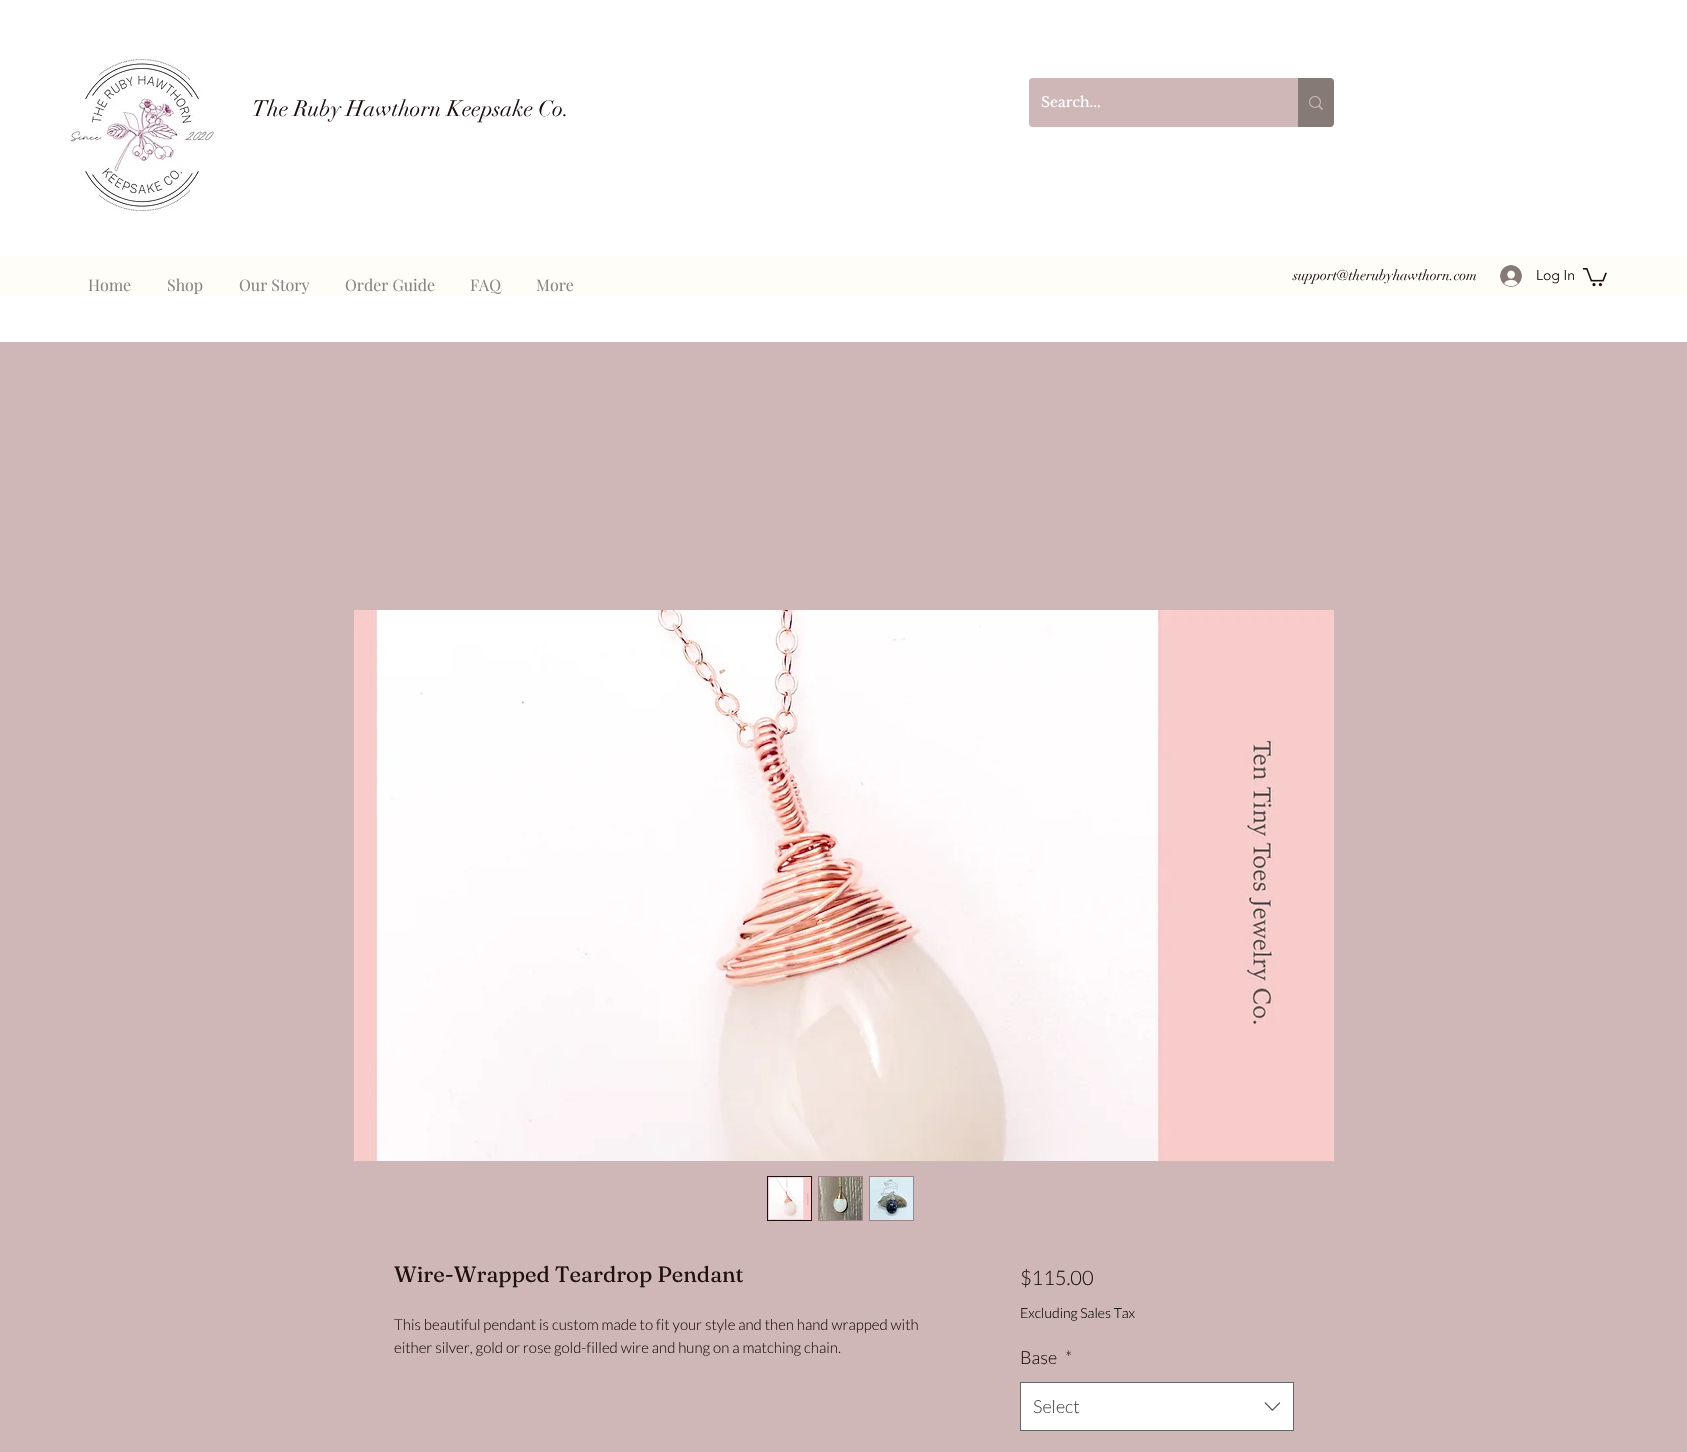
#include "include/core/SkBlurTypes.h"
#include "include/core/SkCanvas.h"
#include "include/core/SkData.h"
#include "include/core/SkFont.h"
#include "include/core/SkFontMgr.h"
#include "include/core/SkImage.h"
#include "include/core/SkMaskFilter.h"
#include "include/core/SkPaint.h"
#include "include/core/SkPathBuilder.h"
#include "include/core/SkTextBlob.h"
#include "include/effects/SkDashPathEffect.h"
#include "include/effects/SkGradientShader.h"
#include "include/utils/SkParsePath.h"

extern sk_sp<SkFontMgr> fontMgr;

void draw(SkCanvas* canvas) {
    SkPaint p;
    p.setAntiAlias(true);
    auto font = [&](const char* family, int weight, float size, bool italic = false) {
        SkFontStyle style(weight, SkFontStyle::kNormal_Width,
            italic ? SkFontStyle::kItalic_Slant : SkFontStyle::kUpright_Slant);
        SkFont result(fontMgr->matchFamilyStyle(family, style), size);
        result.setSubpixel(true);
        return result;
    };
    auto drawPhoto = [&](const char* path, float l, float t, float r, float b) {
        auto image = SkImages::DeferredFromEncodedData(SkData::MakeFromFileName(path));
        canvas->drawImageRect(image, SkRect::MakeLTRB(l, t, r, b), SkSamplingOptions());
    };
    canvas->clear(0xFFCFB7B7);
    p.setColor(0xFFFFFFFF);
    canvas->drawRect(SkRect::MakeLTRB(0, 0, 1687, 342), p);
    drawPhoto("media/1.png", 70, 57, 214, 213);
    auto font1 = font("didot", 400, 22);
    p.setColor(0xFF1F1111);
    canvas->drawString("The Ruby Hawthorn Keepsake Co.", 252, 116, font1, p);
    p.setColor(0xFFCFB7B7);
    canvas->drawRoundRect(SkRect::MakeLTRB(1029, 78, 1334, 127), 4, 4, p);
    auto font2 = font("Libre Baskerville", 400, 14);
    p.setColor(0xFFFFFFFF);
    canvas->drawString("Search...", 1041, 107, font2, p);
    p.setColor(0xFF867A76);
    canvas->drawPath(SkPathBuilder().moveTo(1298, 78).lineTo(1330, 78).cubicTo(1332, 78, 1334, 80, 1334, 82).lineTo(1334, 123).cubicTo(1334, 125, 1332, 127, 1330, 127).lineTo(1298, 127).close().detach(), p);
    drawPhoto("media/2.png", 1309, 96, 1323, 110);
    p.setColor(0xFFFFFDF7);
    canvas->drawRect(SkRect::MakeLTRB(0, 256, 1687, 296), p);
    auto font3 = font("didot", 400, 14);
    p.setColor(0xFF1F1111);
    canvas->drawString("support@therubyhawthorn.com", 1293, 280, font3, p);
    drawPhoto("media/3.png", 1500, 265, 1522, 287);
    auto font4 = font("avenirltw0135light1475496", 300, 14);
    canvas->drawString("Log In", 1536, 280, font4, p);
    drawPhoto("media/4.png", 1583, 268, 1607, 287);
    auto font5 = font("Playfair Display", 400, 16);
    p.setColor(0xFF858585);
    {
        const struct { const char* s; float x, y; } items[] = {
            {"Home", 88, 291},
            {"Shop", 167, 291},
            {"Our Story", 239, 291},
            {"Order Guide", 345, 291},
            {"FAQ", 470, 291},
            {"More", 536, 291},
        };
        for (auto [s, x, y] : items) {
            canvas->drawString(s, x, y, font5, p);
        }
    }
    drawPhoto("media/5.png", 354, 610, 1334, 1161);
    p.setStyle(SkPaint::kStroke_Style);
    p.setStrokeWidth(1);
    p.setColor(0xFF1F1111);
    canvas->drawRect(SkRect::MakeLTRB(767.5f, 1176.5f, 811.5f, 1220.5f), p);
    drawPhoto("media/6.png", 768, 1177, 811, 1220);
    p.setColor(0xFF9E8686);
    canvas->drawRect(SkRect::MakeLTRB(818.5f, 1176.5f, 862.5f, 1220.5f), p);
    drawPhoto("media/7.png", 819, 1177, 862, 1220);
    canvas->drawRect(SkRect::MakeLTRB(869.5f, 1176.5f, 913.5f, 1220.5f), p);
    drawPhoto("media/8.png", 870, 1177, 913, 1220);
    auto font6 = font("Fraunces", 400, 22);
    p.setStyle(SkPaint::kFill_Style);
    p.setColor(0xFF1F1111);
    canvas->drawString("Wire-Wrapped Teardrop Pendant", 394, 1282, font6, p);
    auto font7 = font("Lato", 300, 15);
    canvas->drawString("This beautiful pendant is custom made to fit your style and then hand wrapped with", 394, 1330, font7, p);
    canvas->drawString("either silver, gold or rose gold-filled wire and hung on a matching chain.", 394, 1353, font7, p);
    auto font8 = font("Lato", 300, 20);
    canvas->drawString("$115.00", 1020, 1285, font8, p);
    auto font9 = font("Lato", 300, 14);
    p.setColor(0xFF000000);
    canvas->drawString("Excluding Sales Tax", 1020, 1318, font9, p);
    auto font10 = font("Lato", 300, 18);
    p.setColor(0xFF1F1111);
    canvas->drawString("Base", 1020, 1364, font10, p);
    canvas->drawString("*", 1065, 1364, font10, p);
    p.setColor(0xFFFFFFFF);
    canvas->drawRect(SkRect::MakeLTRB(1020.5f, 1382.5f, 1293.5f, 1430.5f), p);
    p.setStyle(SkPaint::kStroke_Style);
    p.setColor(0xFF666666);
    canvas->drawRect(SkRect::MakeLTRB(1020.5f, 1382.5f, 1293.5f, 1430.5f), p);
    p.setStyle(SkPaint::kFill_Style);
    p.setColor(0xFF444444);
    canvas->drawString("Select", 1033, 1413, font10, p);
    drawPhoto("media/9.png", 1264, 1402, 1281, 1411);
}
